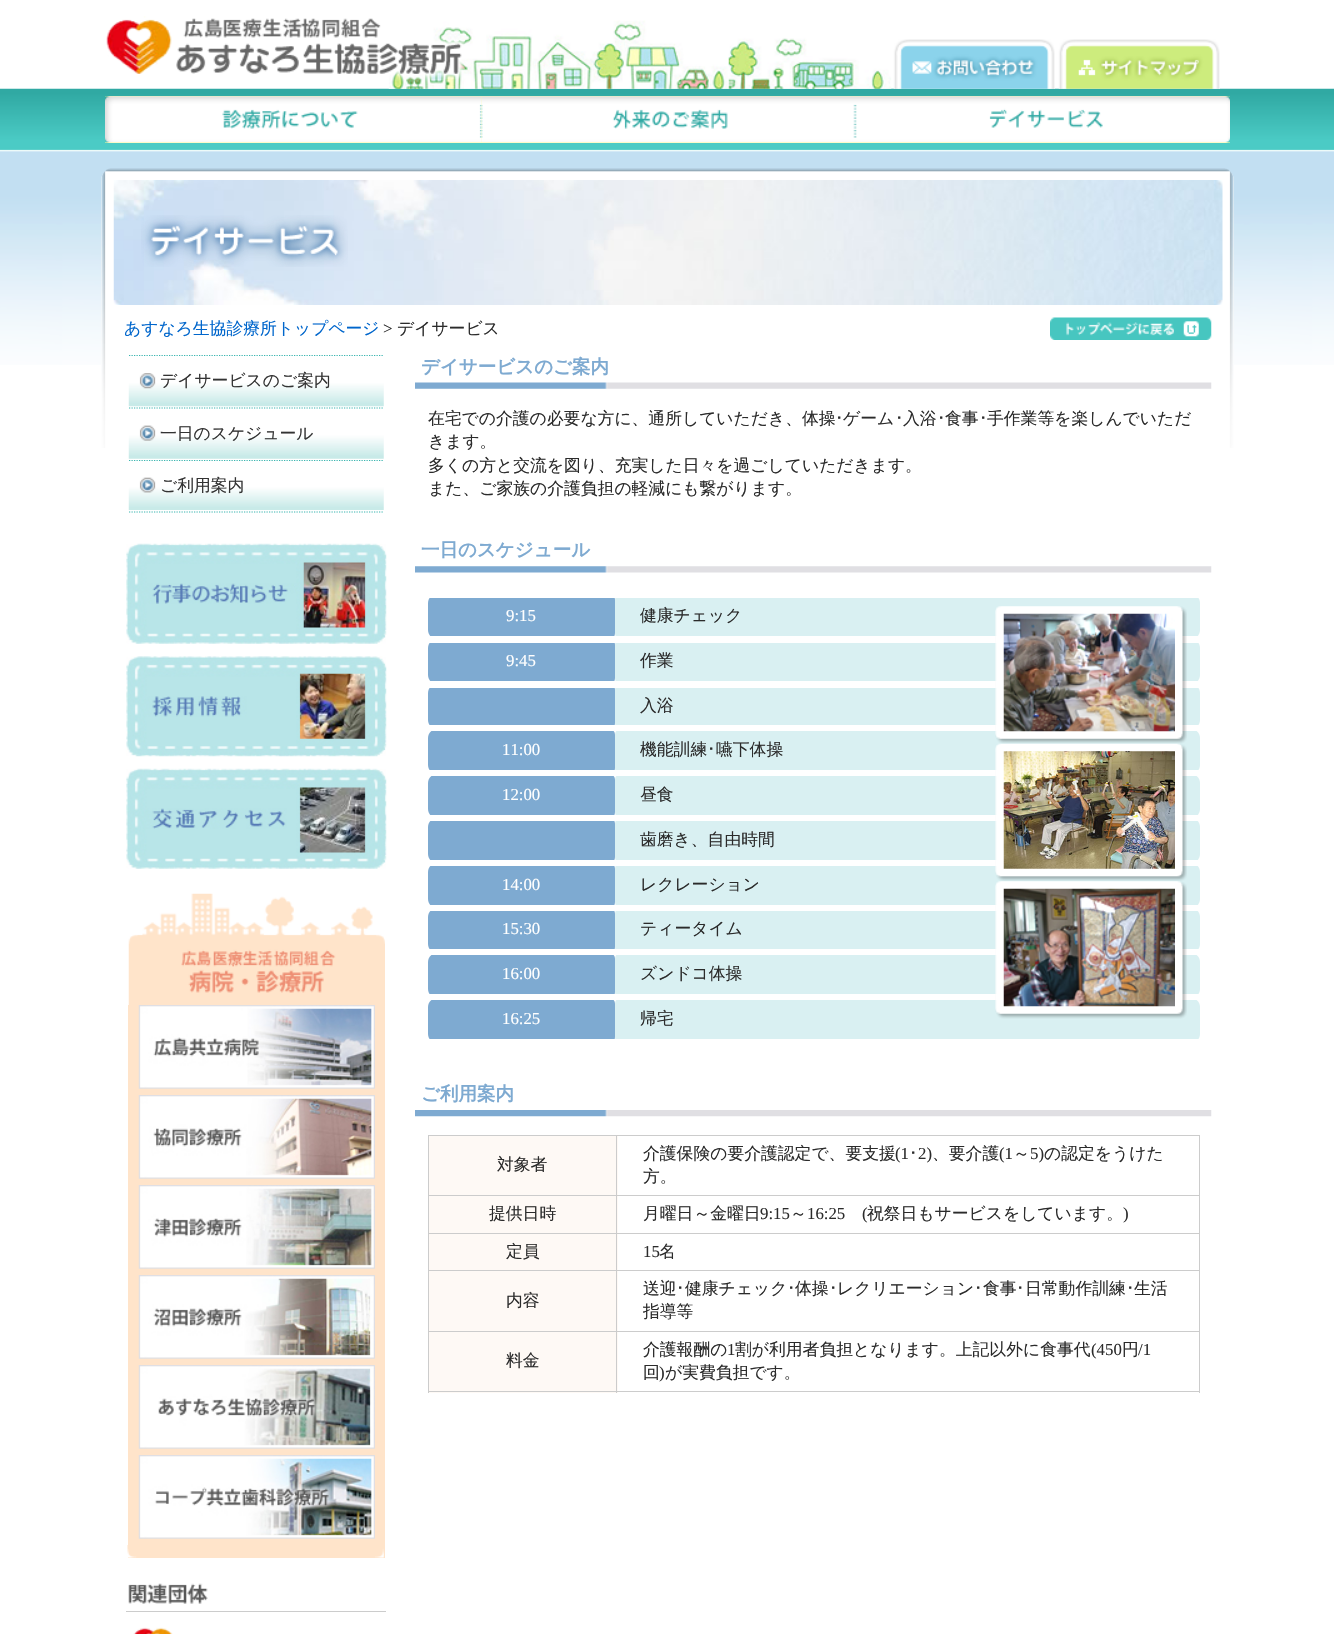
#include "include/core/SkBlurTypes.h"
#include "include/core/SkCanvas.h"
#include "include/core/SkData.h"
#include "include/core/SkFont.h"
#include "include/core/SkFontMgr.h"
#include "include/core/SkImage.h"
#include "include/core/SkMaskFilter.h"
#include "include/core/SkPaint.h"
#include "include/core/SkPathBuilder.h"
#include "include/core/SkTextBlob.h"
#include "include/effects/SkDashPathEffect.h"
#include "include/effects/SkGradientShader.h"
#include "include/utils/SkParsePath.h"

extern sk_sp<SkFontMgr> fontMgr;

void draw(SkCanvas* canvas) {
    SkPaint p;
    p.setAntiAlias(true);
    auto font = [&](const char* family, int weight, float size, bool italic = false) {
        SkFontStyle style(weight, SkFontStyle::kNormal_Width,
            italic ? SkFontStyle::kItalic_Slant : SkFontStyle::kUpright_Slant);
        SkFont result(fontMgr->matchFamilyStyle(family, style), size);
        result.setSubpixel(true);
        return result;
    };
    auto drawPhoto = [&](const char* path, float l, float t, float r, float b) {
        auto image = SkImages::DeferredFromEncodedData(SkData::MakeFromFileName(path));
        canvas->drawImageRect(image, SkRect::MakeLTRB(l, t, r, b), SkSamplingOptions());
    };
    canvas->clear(0xFFFFFFFF);
    drawPhoto("media/1.png", 0, 88, 1334, 365);
    drawPhoto("media/2.png", 388, 20, 892, 89);
    drawPhoto("media/3.png", 106, 16, 466, 82);
    drawPhoto("media/4.png", 893, 39, 1055, 89);
    drawPhoto("media/5.png", 1058, 39, 1220, 89);
    p.setColor(0xFFFFFF99);
    canvas->drawRect(SkRect::MakeLTRB(105, 96, 1230, 143), p);
    drawPhoto("media/6.png", 105, 96, 482, 143);
    drawPhoto("media/7.png", 481, 96, 855, 143);
    drawPhoto("media/8.png", 855, 96, 1230, 143);
    p.setColor(0xFFFFFFFF);
    canvas->drawRoundRect(SkRect::MakeLTRB(101, 168, 1234, 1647), 13, 13, p);
    drawPhoto("media/9.png", 101, 168, 1234, 448);
    drawPhoto("media/10.png", 113, 180, 1223, 305);
    drawPhoto("media/11.png", 141, 215, 348, 267);
    auto font1 = font("WenQuanYi Zen Hei", 500, 16.8f);
    p.setColor(0xFF0066CC);
    canvas->drawString("あすなろ生協診療所トップページ", 124, 334, font1, p);
    auto font2 = font("Liberation Serif", 400, 16.8f);
    p.setColor(0xFF2B2B2B);
    canvas->drawString(">", 383, 334, font2, p);
    canvas->drawString("デイサービス", 397, 334, font1, p);
    drawPhoto("media/12.png", 1050, 317, 1212, 340);
    p.setStyle(SkPaint::kStroke_Style);
    p.setStrokeWidth(1.2f);
    p.setColor(0xFF39B5AF);
    p.setPathEffect(SkDashPathEffect::Make({{1.25f, 1.25f}}, 0));
    canvas->drawPath(SkPathBuilder().moveTo(129, 355.5f).lineTo(384, 355.5f).detach(), p);
    p.setPathEffect(nullptr);
    p.setPathEffect(SkDashPathEffect::Make({{1.25f, 1.25f}}, 0));
    canvas->drawPath(SkPathBuilder().moveTo(129, 408).lineTo(384, 408).detach(), p);
    p.setPathEffect(nullptr);
    drawPhoto("media/13.png", 128, 373, 384, 407);
    p.setStyle(SkPaint::kFill_Style);
    p.setColor(0xFF333333);
    canvas->drawString("デイサービスのご案内", 160, 386, font1, p);
    p.setStyle(SkPaint::kStroke_Style);
    p.setColor(0xFF39B5AF);
    p.setPathEffect(SkDashPathEffect::Make({{1.25f, 1.25f}}, 0));
    canvas->drawPath(SkPathBuilder().moveTo(129, 460.5f).lineTo(384, 460.5f).detach(), p);
    p.setPathEffect(nullptr);
    drawPhoto("media/14.png", 128, 425, 384, 459);
    p.setStyle(SkPaint::kFill_Style);
    p.setColor(0xFF333333);
    canvas->drawString("一日のスケジュール", 160, 439, font1, p);
    p.setStyle(SkPaint::kStroke_Style);
    p.setColor(0xFF39B5AF);
    p.setPathEffect(SkDashPathEffect::Make({{1.25f, 1.25f}}, 0));
    canvas->drawPath(SkPathBuilder().moveTo(129, 512).lineTo(384, 512).detach(), p);
    p.setPathEffect(nullptr);
    drawPhoto("media/15.png", 128, 477, 384, 510);
    p.setStyle(SkPaint::kFill_Style);
    p.setColor(0xFF333333);
    canvas->drawString("ご利用案内", 160, 491, font1, p);
    drawPhoto("media/16.png", 126, 543, 387, 644);
    drawPhoto("media/17.png", 126, 656, 387, 757);
    drawPhoto("media/18.png", 126, 768, 387, 869);
    p.setColor(0xFFFFE4CA);
    canvas->drawRect(SkRect::MakeLTRB(128, 1005, 385, 1558), p);
    drawPhoto("media/19.png", 127, 1545, 384, 1558);
    drawPhoto("media/20.png", 128, 893, 385, 1005);
    drawPhoto("media/21.png", 138, 1005, 375, 1089);
    drawPhoto("media/22.png", 138, 1095, 375, 1179);
    drawPhoto("media/23.png", 138, 1185, 375, 1269);
    drawPhoto("media/24.png", 138, 1275, 375, 1359);
    drawPhoto("media/25.png", 138, 1365, 375, 1449);
    drawPhoto("media/26.png", 138, 1455, 375, 1539);
    p.setColor(0xFFCCCCCC);
    canvas->drawRect(SkRect::MakeLTRB(126, 1611, 386, 1612), p);
    drawPhoto("media/27.png", 128, 1583, 208, 1604);
    drawPhoto("media/28.png", 133, 1627, 173, 1634);
    drawPhoto("media/29.png", 415, 382, 1212, 389);
    auto font3 = font("WenQuanYi Zen Hei", 700, 18.5f);
    p.setColor(0xFF7EAAD1);
    canvas->drawString("デイサービスのご案内", 421, 373, font3, p);
    p.setColor(0xFF2B2B2B);
    canvas->drawString("在宅での介護の必要な方に、通所していただき、体操", 428, 424, font1, p);
    auto font4 = font("IPAGothic", 400, 16.8f);
    canvas->drawString("･", 835, 424, font4, p);
    canvas->drawString("ゲーム", 843, 424, font1, p);
    canvas->drawString("･", 895, 424, font4, p);
    canvas->drawString("入浴", 903, 424, font1, p);
    canvas->drawString("･", 937, 424, font4, p);
    canvas->drawString("食事", 945, 424, font1, p);
    canvas->drawString("･", 979, 424, font4, p);
    {
        const struct { const char* s; float x, y; } items[] = {
            {"手作業等を楽しんでいただ", 987, 424},
            {"きます。", 428, 447},
            {"多くの方と交流を図り、充実した日々を過ごしていただきます。", 428, 471},
            {"また、ご家族の介護負担の軽減にも繋がります。", 428, 494},
        };
        for (auto [s, x, y] : items) {
            canvas->drawString(s, x, y, font1, p);
        }
    }
    drawPhoto("media/30.png", 415, 566, 1212, 573);
    p.setColor(0xFF7EAAD1);
    canvas->drawString("一日のスケジュール", 421, 556, font3, p);
    canvas->drawPath(SkPathBuilder().moveTo(437, 594).lineTo(609, 594).cubicTo(612.5f, 594, 615, 596.5f, 615, 600).lineTo(615, 633).cubicTo(615, 636.5f, 612.5f, 639, 609, 639).lineTo(437, 639).cubicTo(432, 639, 428, 635, 428, 630).lineTo(428, 603).cubicTo(428, 598, 432, 594, 437, 594).close().detach(), p);
    p.setColor(0xFFFFFFFF);
    canvas->drawString("9:15", 506, 621, font2, p);
    p.setColor(0xFFD9F0F2);
    canvas->drawPath(SkPathBuilder().moveTo(621, 594).lineTo(1191, 594).cubicTo(1196, 594, 1200, 598, 1200, 603).lineTo(1200, 630).cubicTo(1200, 635, 1196, 639, 1191, 639).lineTo(621, 639).cubicTo(617.5f, 639, 615, 636.5f, 615, 633).lineTo(615, 600).cubicTo(615, 596.5f, 617.5f, 594, 621, 594).close().detach(), p);
    p.setColor(0xFFFFFFFF);
    canvas->drawRect(SkRect::MakeLTRB(425, 594, 1204, 598), p);
    p.setColor(0xFF2B2B2B);
    canvas->drawString("健康チェック", 640, 621, font1, p);
    p.setColor(0xFF7EAAD1);
    canvas->drawPath(SkPathBuilder().moveTo(437, 639).lineTo(609, 639).cubicTo(612.5f, 639, 615, 641.5f, 615, 645).lineTo(615, 678).cubicTo(615, 681.5f, 612.5f, 684, 609, 684).lineTo(437, 684).cubicTo(432, 684, 428, 680, 428, 675).lineTo(428, 648).cubicTo(428, 643, 432, 639, 437, 639).close().detach(), p);
    p.setColor(0xFFFFFFFF);
    canvas->drawString("9:45", 506, 666, font2, p);
    p.setColor(0xFFD9F0F2);
    canvas->drawPath(SkPathBuilder().moveTo(621, 639).lineTo(1191, 639).cubicTo(1196, 639, 1200, 643, 1200, 648).lineTo(1200, 675).cubicTo(1200, 680, 1196, 684, 1191, 684).lineTo(621, 684).cubicTo(617.5f, 684, 615, 681.5f, 615, 678).lineTo(615, 645).cubicTo(615, 641.5f, 617.5f, 639, 621, 639).close().detach(), p);
    p.setColor(0xFFFFFFFF);
    canvas->drawRect(SkRect::MakeLTRB(425, 636, 1204, 643), p);
    p.setColor(0xFF2B2B2B);
    canvas->drawString("作業", 640, 666, font1, p);
    p.setColor(0xFF7EAAD1);
    canvas->drawPath(SkPathBuilder().moveTo(437, 684).lineTo(609, 684).cubicTo(612.5f, 684, 615, 686.5f, 615, 690).lineTo(615, 723).cubicTo(615, 726.5f, 612.5f, 729, 609, 729).lineTo(437, 729).cubicTo(432, 729, 428, 725, 428, 720).lineTo(428, 693).cubicTo(428, 688, 432, 684, 437, 684).close().detach(), p);
    p.setColor(0xFFD9F0F2);
    canvas->drawPath(SkPathBuilder().moveTo(621, 684).lineTo(1191, 684).cubicTo(1196, 684, 1200, 688, 1200, 693).lineTo(1200, 720).cubicTo(1200, 725, 1196, 729, 1191, 729).lineTo(621, 729).cubicTo(617.5f, 729, 615, 726.5f, 615, 723).lineTo(615, 690).cubicTo(615, 686.5f, 617.5f, 684, 621, 684).close().detach(), p);
    p.setColor(0xFFFFFFFF);
    canvas->drawRect(SkRect::MakeLTRB(425, 681, 1204, 688), p);
    p.setColor(0xFF2B2B2B);
    canvas->drawString("入浴", 640, 711, font1, p);
    p.setColor(0xFF7EAAD1);
    canvas->drawPath(SkPathBuilder().moveTo(437, 729).lineTo(609, 729).cubicTo(612.5f, 729, 615, 731.5f, 615, 735).lineTo(615, 768).cubicTo(615, 771.5f, 612.5f, 774, 609, 774).lineTo(437, 774).cubicTo(432, 774, 428, 770, 428, 765).lineTo(428, 738).cubicTo(428, 733, 432, 729, 437, 729).close().detach(), p);
    p.setColor(0xFFFFFFFF);
    canvas->drawString("11:00", 502, 755, font2, p);
    p.setColor(0xFFD9F0F2);
    canvas->drawPath(SkPathBuilder().moveTo(621, 729).lineTo(1191, 729).cubicTo(1196, 729, 1200, 733, 1200, 738).lineTo(1200, 765).cubicTo(1200, 770, 1196, 774, 1191, 774).lineTo(621, 774).cubicTo(617.5f, 774, 615, 771.5f, 615, 768).lineTo(615, 735).cubicTo(615, 731.5f, 617.5f, 729, 621, 729).close().detach(), p);
    p.setColor(0xFFFFFFFF);
    canvas->drawRect(SkRect::MakeLTRB(425, 725, 1204, 731), p);
    p.setColor(0xFF2B2B2B);
    canvas->drawString("機能訓練", 640, 755, font1, p);
    canvas->drawString("･", 707, 755, font4, p);
    canvas->drawString("嚥下体操", 716, 755, font1, p);
    p.setColor(0xFF7EAAD1);
    canvas->drawPath(SkPathBuilder().moveTo(437, 774).lineTo(609, 774).cubicTo(612.5f, 774, 615, 776.5f, 615, 780).lineTo(615, 812).cubicTo(615, 815.5f, 612.5f, 818, 609, 818).lineTo(437, 818).cubicTo(432, 818, 428, 814, 428, 809).lineTo(428, 783).cubicTo(428, 778, 432, 774, 437, 774).close().detach(), p);
    p.setColor(0xFFFFFFFF);
    canvas->drawString("12:00", 502, 800, font2, p);
    p.setColor(0xFFD9F0F2);
    canvas->drawPath(SkPathBuilder().moveTo(621, 774).lineTo(1191, 774).cubicTo(1196, 774, 1200, 778, 1200, 783).lineTo(1200, 809).cubicTo(1200, 814, 1196, 818, 1191, 818).lineTo(621, 818).cubicTo(617.5f, 818, 615, 815.5f, 615, 812).lineTo(615, 780).cubicTo(615, 776.5f, 617.5f, 774, 621, 774).close().detach(), p);
    p.setColor(0xFFFFFFFF);
    canvas->drawRect(SkRect::MakeLTRB(425, 770, 1204, 776), p);
    p.setColor(0xFF2B2B2B);
    canvas->drawString("昼食", 640, 800, font1, p);
    p.setColor(0xFF7EAAD1);
    canvas->drawPath(SkPathBuilder().moveTo(437, 818).lineTo(609, 818).cubicTo(612.5f, 818, 615, 820.5f, 615, 824).lineTo(615, 857).cubicTo(615, 860.5f, 612.5f, 863, 609, 863).lineTo(437, 863).cubicTo(432, 863, 428, 859, 428, 854).lineTo(428, 827).cubicTo(428, 822, 432, 818, 437, 818).close().detach(), p);
    p.setColor(0xFFD9F0F2);
    canvas->drawPath(SkPathBuilder().moveTo(621, 818).lineTo(1191, 818).cubicTo(1196, 818, 1200, 822, 1200, 827).lineTo(1200, 854).cubicTo(1200, 859, 1196, 863, 1191, 863).lineTo(621, 863).cubicTo(617.5f, 863, 615, 860.5f, 615, 857).lineTo(615, 824).cubicTo(615, 820.5f, 617.5f, 818, 621, 818).close().detach(), p);
    p.setColor(0xFFFFFFFF);
    canvas->drawRect(SkRect::MakeLTRB(425, 815, 1204, 821), p);
    p.setColor(0xFF2B2B2B);
    canvas->drawString("歯磨き、自由時間", 640, 845, font1, p);
    p.setColor(0xFF7EAAD1);
    canvas->drawPath(SkPathBuilder().moveTo(437, 863).lineTo(609, 863).cubicTo(612.5f, 863, 615, 865.5f, 615, 869).lineTo(615, 902).cubicTo(615, 905.5f, 612.5f, 908, 609, 908).lineTo(437, 908).cubicTo(432, 908, 428, 904, 428, 899).lineTo(428, 872).cubicTo(428, 867, 432, 863, 437, 863).close().detach(), p);
    p.setColor(0xFFFFFFFF);
    canvas->drawString("14:00", 502, 890, font2, p);
    p.setColor(0xFFD9F0F2);
    canvas->drawPath(SkPathBuilder().moveTo(621, 863).lineTo(1191, 863).cubicTo(1196, 863, 1200, 867, 1200, 872).lineTo(1200, 899).cubicTo(1200, 904, 1196, 908, 1191, 908).lineTo(621, 908).cubicTo(617.5f, 908, 615, 905.5f, 615, 902).lineTo(615, 869).cubicTo(615, 865.5f, 617.5f, 863, 621, 863).close().detach(), p);
    p.setColor(0xFFFFFFFF);
    canvas->drawRect(SkRect::MakeLTRB(425, 860, 1204, 866), p);
    p.setColor(0xFF2B2B2B);
    canvas->drawString("レクレーション", 640, 890, font1, p);
    p.setColor(0xFF7EAAD1);
    canvas->drawPath(SkPathBuilder().moveTo(437, 908).lineTo(609, 908).cubicTo(612.5f, 908, 615, 910.5f, 615, 914).lineTo(615, 947).cubicTo(615, 950.5f, 612.5f, 953, 609, 953).lineTo(437, 953).cubicTo(432, 953, 428, 949, 428, 944).lineTo(428, 917).cubicTo(428, 912, 432, 908, 437, 908).close().detach(), p);
    p.setColor(0xFFFFFFFF);
    canvas->drawString("15:30", 502, 934, font2, p);
    p.setColor(0xFFD9F0F2);
    canvas->drawPath(SkPathBuilder().moveTo(621, 908).lineTo(1191, 908).cubicTo(1196, 908, 1200, 912, 1200, 917).lineTo(1200, 944).cubicTo(1200, 949, 1196, 953, 1191, 953).lineTo(621, 953).cubicTo(617.5f, 953, 615, 950.5f, 615, 947).lineTo(615, 914).cubicTo(615, 910.5f, 617.5f, 908, 621, 908).close().detach(), p);
    p.setColor(0xFFFFFFFF);
    canvas->drawRect(SkRect::MakeLTRB(425, 905, 1204, 911), p);
    p.setColor(0xFF2B2B2B);
    canvas->drawString("ティータイム", 640, 934, font1, p);
    p.setColor(0xFF7EAAD1);
    canvas->drawPath(SkPathBuilder().moveTo(437, 953).lineTo(609, 953).cubicTo(612.5f, 953, 615, 955.5f, 615, 959).lineTo(615, 992).cubicTo(615, 995.5f, 612.5f, 998, 609, 998).lineTo(437, 998).cubicTo(432, 998, 428, 994, 428, 989).lineTo(428, 962).cubicTo(428, 957, 432, 953, 437, 953).close().detach(), p);
    p.setColor(0xFFFFFFFF);
    canvas->drawString("16:00", 502, 979, font2, p);
    p.setColor(0xFFD9F0F2);
    canvas->drawPath(SkPathBuilder().moveTo(621, 953).lineTo(1191, 953).cubicTo(1196, 953, 1200, 957, 1200, 962).lineTo(1200, 989).cubicTo(1200, 994, 1196, 998, 1191, 998).lineTo(621, 998).cubicTo(617.5f, 998, 615, 995.5f, 615, 992).lineTo(615, 959).cubicTo(615, 955.5f, 617.5f, 953, 621, 953).close().detach(), p);
    p.setColor(0xFFFFFFFF);
    canvas->drawRect(SkRect::MakeLTRB(425, 949, 1204, 955), p);
    p.setColor(0xFF2B2B2B);
    canvas->drawString("ズンドコ体操", 640, 979, font1, p);
    p.setColor(0xFF7EAAD1);
    canvas->drawPath(SkPathBuilder().moveTo(437, 998).lineTo(609, 998).cubicTo(612.5f, 998, 615, 1000.5f, 615, 1004).lineTo(615, 1037).cubicTo(615, 1040.5f, 612.5f, 1043, 609, 1043).lineTo(437, 1043).cubicTo(432, 1043, 428, 1039, 428, 1034).lineTo(428, 1007).cubicTo(428, 1002, 432, 998, 437, 998).close().detach(), p);
    p.setColor(0xFFFFFFFF);
    canvas->drawString("16:25", 502, 1024, font2, p);
    p.setColor(0xFFD9F0F2);
    canvas->drawPath(SkPathBuilder().moveTo(621, 998).lineTo(1191, 998).cubicTo(1196, 998, 1200, 1002, 1200, 1007).lineTo(1200, 1034).cubicTo(1200, 1039, 1196, 1043, 1191, 1043).lineTo(621, 1043).cubicTo(617.5f, 1043, 615, 1040.5f, 615, 1037).lineTo(615, 1004).cubicTo(615, 1000.5f, 617.5f, 998, 621, 998).close().detach(), p);
    p.setColor(0xFFFFFFFF);
    canvas->drawRect(SkRect::MakeLTRB(425, 994, 1204, 1000), p);
    canvas->drawRect(SkRect::MakeLTRB(425, 1039, 1204, 1043), p);
    p.setColor(0xFF2B2B2B);
    canvas->drawString("帰宅", 640, 1024, font1, p);
    drawPhoto("media/31.png", 995, 606, 1187, 744);
    drawPhoto("media/32.png", 1003, 613, 1175, 732);
    drawPhoto("media/33.png", 995, 743, 1187, 881);
    drawPhoto("media/34.png", 1003, 751, 1175, 869);
    drawPhoto("media/35.png", 995, 881, 1187, 1019);
    drawPhoto("media/36.png", 1003, 888, 1175, 1007);
    drawPhoto("media/37.png", 415, 1110, 1212, 1117);
    p.setColor(0xFF7EAAD1);
    canvas->drawString("ご利用案内", 421, 1100, font3, p);
    {
        const struct { float l, t, r, b; SkColor color; } items[] = {
            {429, 1136, 618, 1195, 0xFFFEF9F5},
            {616, 1135, 1200, 1136, 0xFFCCCCCC},
            {616, 1195, 1200, 1196, 0xFFCCCCCC},
            {429, 1196, 618, 1233, 0xFFFEF9F5},
            {616, 1233, 1200, 1234, 0xFFCCCCCC},
            {429, 1234, 618, 1270, 0xFFFEF9F5},
            {616, 1270, 1200, 1271, 0xFFCCCCCC},
            {429, 1271, 618, 1331, 0xFFFEF9F5},
            {429, 1332, 618, 1393, 0xFFFEF9F5},
            {616, 1331, 1200, 1332, 0xFFCCCCCC},
            {1199, 1331, 1200, 1393, 0xFFCCCCCC},
            {616, 1391, 1200, 1392, 0xFFCCCCCC},
            {616, 1331, 617, 1393, 0xFFCCCCCC},
            {428, 1331, 618, 1332, 0xFFCCCCCC},
            {616, 1270, 617, 1333, 0xFFCCCCCC},
            {428, 1270, 618, 1271, 0xFFCCCCCC},
            {616, 1233, 617, 1271, 0xFFCCCCCC},
            {428, 1233, 618, 1234, 0xFFCCCCCC},
            {616, 1195, 617, 1234, 0xFFCCCCCC},
            {428, 1195, 618, 1196, 0xFFCCCCCC},
            {616, 1135, 617, 1196, 0xFFCCCCCC},
            {428, 1135, 618, 1136, 0xFFCCCCCC},
            {428, 1391, 618, 1392, 0xFFCCCCCC},
            {428, 1331, 429, 1393, 0xFFCCCCCC},
            {428, 1270, 429, 1333, 0xFFCCCCCC},
            {428, 1233, 429, 1271, 0xFFCCCCCC},
            {428, 1195, 429, 1234, 0xFFCCCCCC},
            {428, 1135, 429, 1196, 0xFFCCCCCC},
        };
        for (auto [l, t, r, b, color] : items) {
            p.setColor(color);
            canvas->drawRect(SkRect::MakeLTRB(l, t, r, b), p);
        }
    }
    p.setColor(0xFF2B2B2B);
    canvas->drawString("対象者", 497, 1170, font1, p);
    {
        const struct { float l, t, r, b; SkColor color; } items[] = {
            {1199, 1270, 1200, 1333, 0xFFCCCCCC},
            {1199, 1233, 1200, 1271, 0xFFCCCCCC},
            {1199, 1195, 1200, 1234, 0xFFCCCCCC},
            {1199, 1135, 1200, 1196, 0xFFCCCCCC},
        };
        for (auto [l, t, r, b, color] : items) {
            p.setColor(color);
            canvas->drawRect(SkRect::MakeLTRB(l, t, r, b), p);
        }
    }
    p.setColor(0xFF2B2B2B);
    canvas->drawString("介護保険の要介護認定で、要支援", 643, 1159, font1, p);
    canvas->drawString("(1", 895, 1159, font2, p);
    canvas->drawString("･", 909, 1159, font4, p);
    canvas->drawString("2)", 918, 1159, font2, p);
    canvas->drawString("、要介護", 932, 1159, font1, p);
    canvas->drawString("(1", 999, 1159, font2, p);
    canvas->drawString("～", 1013, 1159, font1, p);
    canvas->drawString("5)", 1030, 1159, font2, p);
    {
        const struct { const char* s; float x, y; } items[] = {
            {"の認定をうけた", 1044, 1159},
            {"方。", 643, 1182},
            {"提供日時", 489, 1219},
            {"月曜日～金曜日", 643, 1219},
        };
        for (auto [s, x, y] : items) {
            canvas->drawString(s, x, y, font1, p);
        }
    }
    canvas->drawString("9:15", 760, 1219, font2, p);
    canvas->drawString("～", 790, 1219, font1, p);
    canvas->drawString("16:25", 807, 1219, font2, p);
    canvas->drawString("(", 862, 1219, font2, p);
    canvas->drawString("祝祭日もサービスをしています。", 867, 1219, font1, p);
    canvas->drawString(")", 1123, 1219, font2, p);
    canvas->drawString("定員", 506, 1257, font1, p);
    canvas->drawString("15", 643, 1257, font2, p);
    {
        const struct { const char* s; float x, y; } items[] = {
            {"名", 659, 1257},
            {"内容", 506, 1306},
            {"送迎", 643, 1294},
        };
        for (auto [s, x, y] : items) {
            canvas->drawString(s, x, y, font1, p);
        }
    }
    canvas->drawString("･", 676, 1294, font4, p);
    canvas->drawString("健康チェック", 685, 1294, font1, p);
    canvas->drawString("･", 787, 1294, font4, p);
    canvas->drawString("体操", 795, 1294, font1, p);
    canvas->drawString("･", 829, 1294, font4, p);
    canvas->drawString("レクリエーション", 837, 1294, font1, p);
    canvas->drawString("･", 974, 1294, font4, p);
    canvas->drawString("食事", 983, 1294, font1, p);
    canvas->drawString("･", 1016, 1294, font4, p);
    canvas->drawString("日常動作訓練", 1025, 1294, font1, p);
    canvas->drawString("･", 1126, 1294, font4, p);
    {
        const struct { const char* s; float x, y; } items[] = {
            {"生活", 1134, 1294},
            {"指導等", 643, 1317},
            {"料金", 506, 1366},
            {"介護報酬の", 643, 1355},
        };
        for (auto [s, x, y] : items) {
            canvas->drawString(s, x, y, font1, p);
        }
    }
    canvas->drawString("1", 727, 1355, font2, p);
    canvas->drawString("割が利用者負担となります。上記以外に食事代", 735, 1355, font1, p);
    canvas->drawString("(450", 1091, 1355, font2, p);
    canvas->drawString("円", 1122, 1355, font1, p);
    canvas->drawString("/1", 1138, 1355, font2, p);
    canvas->drawString("回", 643, 1378, font1, p);
    canvas->drawString(")", 659, 1378, font2, p);
    canvas->drawString("が実費負担です。", 665, 1378, font1, p);
}
